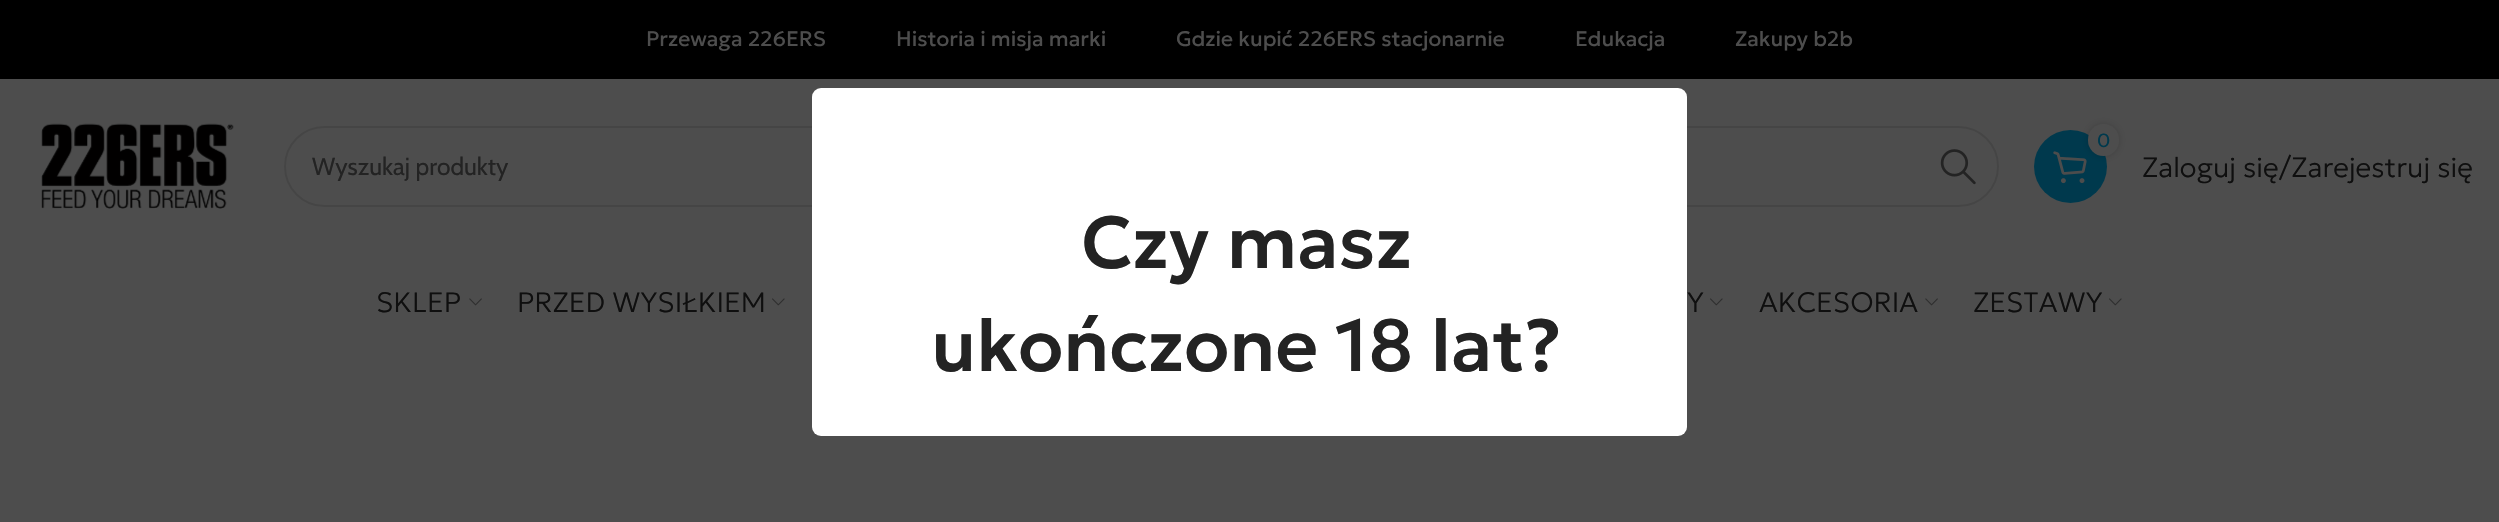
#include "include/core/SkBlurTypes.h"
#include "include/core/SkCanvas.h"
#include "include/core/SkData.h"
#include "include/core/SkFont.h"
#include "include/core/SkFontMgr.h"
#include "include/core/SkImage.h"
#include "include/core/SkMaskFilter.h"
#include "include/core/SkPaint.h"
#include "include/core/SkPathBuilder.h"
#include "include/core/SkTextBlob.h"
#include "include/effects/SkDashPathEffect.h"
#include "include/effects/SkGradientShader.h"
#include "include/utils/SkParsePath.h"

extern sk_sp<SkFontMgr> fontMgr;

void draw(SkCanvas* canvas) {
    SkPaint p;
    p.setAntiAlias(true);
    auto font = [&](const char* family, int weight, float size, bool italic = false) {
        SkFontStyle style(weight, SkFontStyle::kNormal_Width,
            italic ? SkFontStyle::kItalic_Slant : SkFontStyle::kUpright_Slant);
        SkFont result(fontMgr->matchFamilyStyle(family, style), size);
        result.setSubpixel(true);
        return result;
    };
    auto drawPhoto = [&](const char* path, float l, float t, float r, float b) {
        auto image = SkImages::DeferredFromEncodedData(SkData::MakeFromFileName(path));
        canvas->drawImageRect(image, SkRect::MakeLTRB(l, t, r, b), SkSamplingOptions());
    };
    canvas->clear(0xFF4D4D4D);
    p.setColor(0xFF000000);
    canvas->drawRect(SkRect::MakeLTRB(0, 0, 2499, 79), p);
    auto font1 = font("Geologica", 400, 21);
    p.setColor(0xFF4D4D4D);
    {
        const struct { const char* s; float x, y; } items[] = {
            {"Przewaga 226ERS", 646, 46},
            {"Historia i misja marki", 896, 46},
            {"Gdzie kupić 226ERS stacjonarnie", 1176, 46},
            {"Edukacja", 1575, 46},
            {"Zakupy b2b", 1735, 46},
        };
        for (auto [s, x, y] : items) {
            canvas->drawString(s, x, y, font1, p);
        }
    }
    drawPhoto("media/1.png", 41, 123, 234, 209);
    p.setStyle(SkPaint::kStroke_Style);
    p.setStrokeWidth(2);
    p.setColor(0xFF454545);
    canvas->drawRoundRect(SkRect::MakeLTRB(285, 127, 1998, 206), 39.5f, 39.5f, p);
    auto font2 = font("Cabin", 400, 24.5f);
    p.setStyle(SkPaint::kFill_Style);
    p.setColor(0xFF232323);
    canvas->drawString("Wyszukaj produkty", 312, 175, font2, p);
    drawPhoto("media/2.png", 1940, 149, 1976, 185);
    p.setColor(0xFF00394D);
    canvas->drawCircle(2070.5f, 166.5f, 36.5f, p);
    drawPhoto("media/3.png", 2053, 151, 2087, 184);
    p.setColor(0x2B000000);
    p.setMaskFilter(SkMaskFilter::MakeBlur(kNormal_SkBlurStyle, 3.5f));
    canvas->drawRoundRect(SkRect::MakeLTRB(2088, 124, 2119, 156), 15.5f, 15.5f, p);
    p.setMaskFilter(nullptr);
    p.setColor(0xFF4D4D4D);
    canvas->drawRoundRect(SkRect::MakeLTRB(2088, 124, 2119, 156), 15.5f, 15.5f, p);
    auto font3 = font("Cabin", 400, 19);
    p.setColor(0xFF00394D);
    canvas->drawString("0", 2097, 147, font3, p);
    auto font4 = font("Geologica", 200, 28);
    p.setColor(0xFF0F0F0F);
    canvas->drawString("Zaloguj się/Zarejestruj się", 2142, 177, font4, p);
    canvas->drawString("SKLEP", 376, 312, font4, p);
    drawPhoto("media/4.png", 469, 298, 482, 306);
    canvas->drawString("PRZED WYSIŁKIEM", 517, 312, font4, p);
    drawPhoto("media/5.png", 772, 298, 785, 306);
    canvas->drawString("Y", 1687, 312, font4, p);
    drawPhoto("media/5.png", 1710, 298, 1723, 306);
    canvas->drawString("AKCESORIA", 1759, 312, font4, p);
    drawPhoto("media/4.png", 1925, 298, 1938, 306);
    canvas->drawString("ZESTAWY", 1973, 312, font4, p);
    drawPhoto("media/5.png", 2109, 298, 2122, 306);
    p.setColor(0xFFFFFFFF);
    canvas->drawRoundRect(SkRect::MakeLTRB(812, 88, 1687, 436), 9, 9, p);
    auto font5 = font("Geologica", 500, 73.5f);
    p.setColor(0xFF232323);
    canvas->drawString("Czy masz", 1081, 268, font5, p);
    canvas->drawString("ukończone 18 lat?", 931, 371, font5, p);
}
